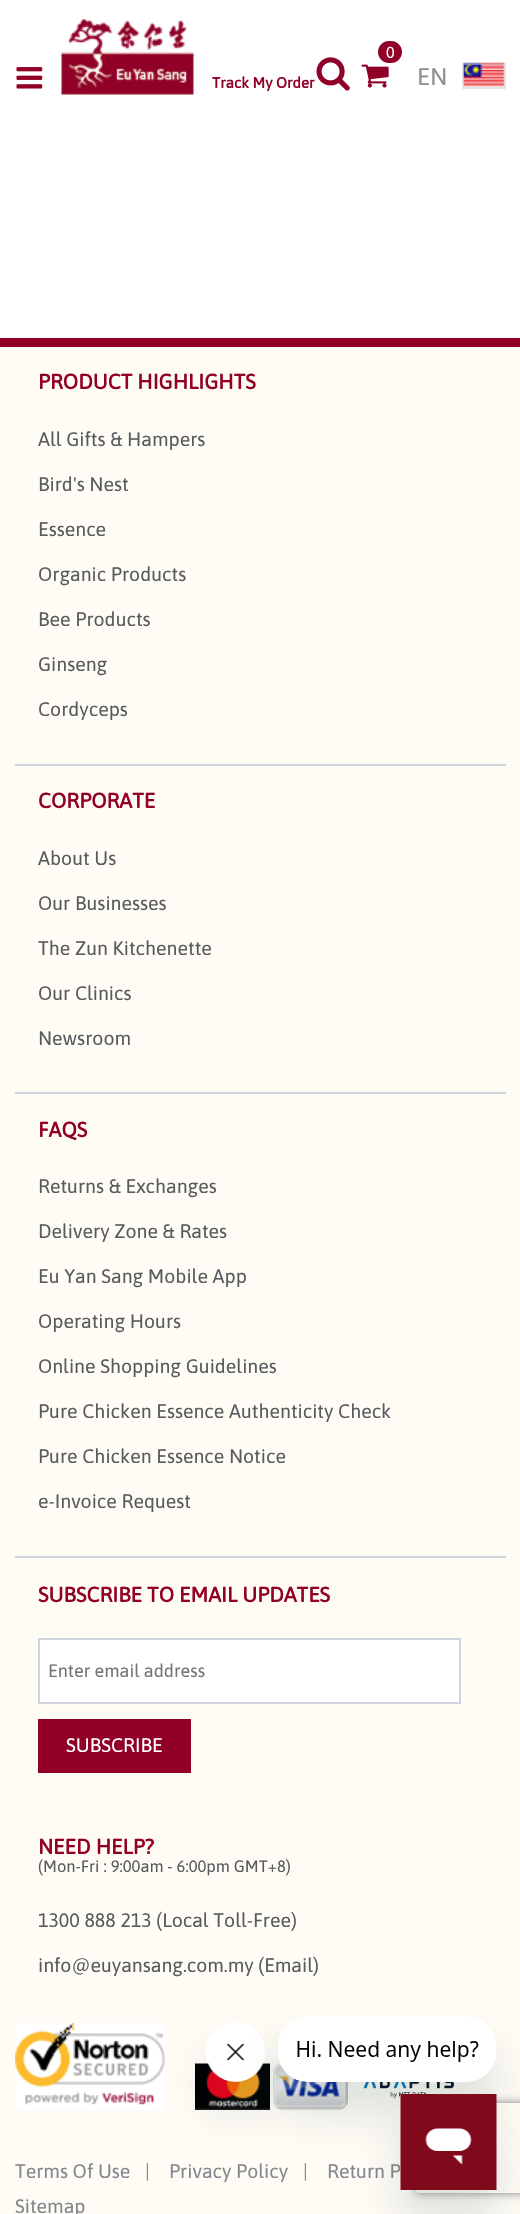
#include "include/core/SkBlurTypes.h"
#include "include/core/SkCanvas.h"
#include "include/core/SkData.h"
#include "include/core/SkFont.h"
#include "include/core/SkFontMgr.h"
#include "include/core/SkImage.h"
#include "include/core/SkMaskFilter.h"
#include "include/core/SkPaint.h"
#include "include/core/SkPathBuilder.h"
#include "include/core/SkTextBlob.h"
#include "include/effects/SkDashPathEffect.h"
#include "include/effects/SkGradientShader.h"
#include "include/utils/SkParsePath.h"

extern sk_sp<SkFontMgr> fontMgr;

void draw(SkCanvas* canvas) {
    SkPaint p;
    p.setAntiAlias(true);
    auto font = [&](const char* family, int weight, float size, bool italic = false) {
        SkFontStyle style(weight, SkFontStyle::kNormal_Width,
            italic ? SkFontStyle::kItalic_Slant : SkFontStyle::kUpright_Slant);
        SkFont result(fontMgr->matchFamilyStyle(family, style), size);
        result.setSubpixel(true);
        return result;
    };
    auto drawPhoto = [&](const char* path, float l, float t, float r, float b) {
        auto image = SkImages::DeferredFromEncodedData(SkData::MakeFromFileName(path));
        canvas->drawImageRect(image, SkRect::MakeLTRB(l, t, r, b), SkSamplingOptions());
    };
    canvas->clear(0xFFFFFFFF);
    drawPhoto("media/1.png", 16, 67, 43, 89);
    drawPhoto("media/2.png", 61, 19, 194, 95);
    auto font1 = font("Asap", 700, 15);
    p.setColor(0xFF910027);
    canvas->drawString("Track My Order", 212, 88, font1, p);
    p.setColor(0xFF900027);
    canvas->drawRoundRect(SkRect::MakeLTRB(380.5f, 43.5f, 399.5f, 60.5f), 8.5f, 8.5f, p);
    p.setStyle(SkPaint::kStroke_Style);
    p.setStrokeWidth(5);
    canvas->drawRoundRect(SkRect::MakeLTRB(380.5f, 43.5f, 399.5f, 60.5f), 8.5f, 8.5f, p);
    auto font2 = font("Asap", 400, 16);
    p.setStyle(SkPaint::kFill_Style);
    p.setColor(0xFFFFFFFF);
    canvas->drawString("0", 386, 58, font2, p);
    drawPhoto("media/3.png", 361, 64, 389, 88);
    drawPhoto("media/4.png", 316, 57, 350, 91);
    auto font3 = font("Asap", 400, 24);
    p.setColor(0xFF8F8F8F);
    canvas->drawString("EN", 417, 85, font3, p);
    drawPhoto("media/5.png", 463, 62, 506, 87);
    p.setStyle(SkPaint::kStroke_Style);
    p.setStrokeWidth(2);
    p.setColor(0x82CCCCCC);
    canvas->drawRect(SkRect::MakeLTRB(463, 64, 505, 88), p);
    p.setStyle(SkPaint::kFill_Style);
    {
        const struct { float l, t, r, b; SkColor color; } items[] = {
            {0, 347, 520, 2214, 0xFFFFFBF5},
            {0, 338, 520, 347, 0xFF910027},
            {15, 764, 506, 766, 0xFFCED5DE},
        };
        for (auto [l, t, r, b, color] : items) {
            p.setColor(color);
            canvas->drawRect(SkRect::MakeLTRB(l, t, r, b), p);
        }
    }
    auto font4 = font("Asap", 700, 21);
    p.setColor(0xFF910027);
    canvas->drawString("PRODUCT HIGHLIGHTS", 38, 389, font4, p);
    auto font5 = font("Asap", 400, 19.5f);
    p.setColor(0xFF585B5E);
    {
        const struct { const char* s; float x, y; } items[] = {
            {"All Gifts & Hampers", 38, 446},
            {"Bird's Nest", 38, 491},
            {"Essence", 38, 536},
            {"Organic Products", 38, 581},
            {"Bee Products", 38, 626},
            {"Ginseng", 38, 671},
            {"Cordyceps", 38, 716},
        };
        for (auto [s, x, y] : items) {
            canvas->drawString(s, x, y, font5, p);
        }
    }
    p.setColor(0xFFCED5DE);
    canvas->drawRect(SkRect::MakeLTRB(15, 1092, 506, 1094), p);
    p.setColor(0xFF910027);
    canvas->drawString("CORPORATE", 38, 808, font4, p);
    p.setColor(0xFF585B5E);
    {
        const struct { const char* s; float x, y; } items[] = {
            {"About Us", 38, 865},
            {"Our Businesses", 38, 910},
            {"The Zun Kitchenette", 38, 955},
            {"Our Clinics", 38, 1000},
            {"Newsroom", 38, 1045},
        };
        for (auto [s, x, y] : items) {
            canvas->drawString(s, x, y, font5, p);
        }
    }
    p.setColor(0xFFCED5DE);
    canvas->drawRect(SkRect::MakeLTRB(15, 1556, 506, 1558), p);
    p.setColor(0xFF910027);
    canvas->drawString("FAQS", 38, 1137, font4, p);
    p.setColor(0xFF585B5E);
    {
        const struct { const char* s; float x, y; } items[] = {
            {"Returns & Exchanges", 38, 1193},
            {"Delivery Zone & Rates", 38, 1238},
            {"Eu Yan Sang Mobile App", 38, 1283},
            {"Operating Hours", 38, 1328},
            {"Online Shopping Guidelines", 38, 1373},
            {"Pure Chicken Essence Authenticity Check", 38, 1418},
            {"Pure Chicken Essence Notice", 38, 1463},
            {"e-Invoice Request", 38, 1508},
        };
        for (auto [s, x, y] : items) {
            canvas->drawString(s, x, y, font5, p);
        }
    }
    p.setColor(0xFF910027);
    canvas->drawString("SUBSCRIBE TO EMAIL UPDATES", 38, 1602, font4, p);
    p.setColor(0xFFFFFFFF);
    canvas->drawRect(SkRect::MakeLTRB(39, 1639, 460, 1703), p);
    p.setStyle(SkPaint::kStroke_Style);
    p.setColor(0xFFCED5DE);
    canvas->drawRect(SkRect::MakeLTRB(39, 1639, 460, 1703), p);
    auto font6 = font("Asap", 400, 18);
    p.setStyle(SkPaint::kFill_Style);
    p.setColor(0xFF757575);
    canvas->drawString("Enter email address", 48, 1677, font6, p);
    p.setColor(0xFF900027);
    canvas->drawRect(SkRect::MakeLTRB(38, 1719, 191, 1773), p);
    p.setColor(0xFFFFFFFF);
    canvas->drawString("SUBSCRIBE", 66, 1752, font5, p);
    p.setColor(0xFF910027);
    canvas->drawString("NEED HELP?", 38, 1854, font4, p);
    auto font7 = font("Asap", 400, 16.5f);
    p.setColor(0xFF585B5E);
    canvas->drawString("(Mon-Fri : 9:00am - 6:00pm GMT+8)", 38, 1872, font7, p);
    canvas->drawString("1300 888 213 (Local Toll-Free)", 38, 1927, font5, p);
    canvas->drawString("info@euyansang.com.my (Email)", 38, 1972, font5, p);
    drawPhoto("media/6.png", 15, 2023, 165, 2110);
    drawPhoto("media/7.png", 195, 2063, 270, 2110);
    drawPhoto("media/8.png", 273, 2063, 348, 2110);
    drawPhoto("media/9.png", 363, 2082, 454, 2098);
    p.setColor(0xFF82868D);
    {
        const struct { const char* s; float x, y; } items[] = {
            {"Terms Of Use", 15, 2178},
            {"|", 145, 2178},
            {"Privacy Policy", 169, 2178},
            {"|", 303, 2178},
            {"Return P", 327, 2178},
            {"Sitemap", 15, 2213},
        };
        for (auto [s, x, y] : items) {
            canvas->drawString(s, x, y, font5, p);
        }
    }
    p.setColor(0x2617494D);
    p.setMaskFilter(SkMaskFilter::MakeBlur(kNormal_SkBlurStyle, 22.5f));
    canvas->drawRoundRect(SkRect::MakeLTRB(206, 2052, 266, 2112), 30, 30, p);
    p.setMaskFilter(nullptr);
    drawPhoto("media/11.png", 205, 2022, 266, 2082);
    p.setMaskFilter(SkMaskFilter::MakeBlur(kNormal_SkBlurStyle, 22.5f));
    canvas->drawRoundRect(SkRect::MakeLTRB(278, 2046, 497, 2112), 30, 30, p);
    p.setMaskFilter(nullptr);
    drawPhoto("media/10.png", 278, 2016, 496, 2082);
    p.setMaskFilter(SkMaskFilter::MakeBlur(kNormal_SkBlurStyle, 22.5f));
    canvas->drawRect(SkRect::MakeLTRB(401, 2124, 497, 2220), p);
    p.setMaskFilter(nullptr);
    canvas->save();
    canvas->clipPath(SkPathBuilder(SkPathFillType::kEvenOdd).moveTo(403, 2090).lineTo(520, 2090).lineTo(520, 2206).lineTo(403, 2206).close().moveTo(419, 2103).lineTo(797, 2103).cubicTo(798.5f, 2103, 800, 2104.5f, 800, 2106).lineTo(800, 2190).cubicTo(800, 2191.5f, 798.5f, 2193, 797, 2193).lineTo(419, 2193).cubicTo(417.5f, 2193, 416, 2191.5f, 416, 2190).lineTo(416, 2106).cubicTo(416, 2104.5f, 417.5f, 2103, 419, 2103).close().detach(), true);
    p.setColor(0xFF808080);
    p.setMaskFilter(SkMaskFilter::MakeBlur(kNormal_SkBlurStyle, 4));
    canvas->drawRoundRect(SkRect::MakeLTRB(416, 2103, 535, 2193), 3, 3, p);
    p.setMaskFilter(nullptr);
    canvas->restore();
    drawPhoto("media/12.png", 400, 2094, 497, 2190);
}
